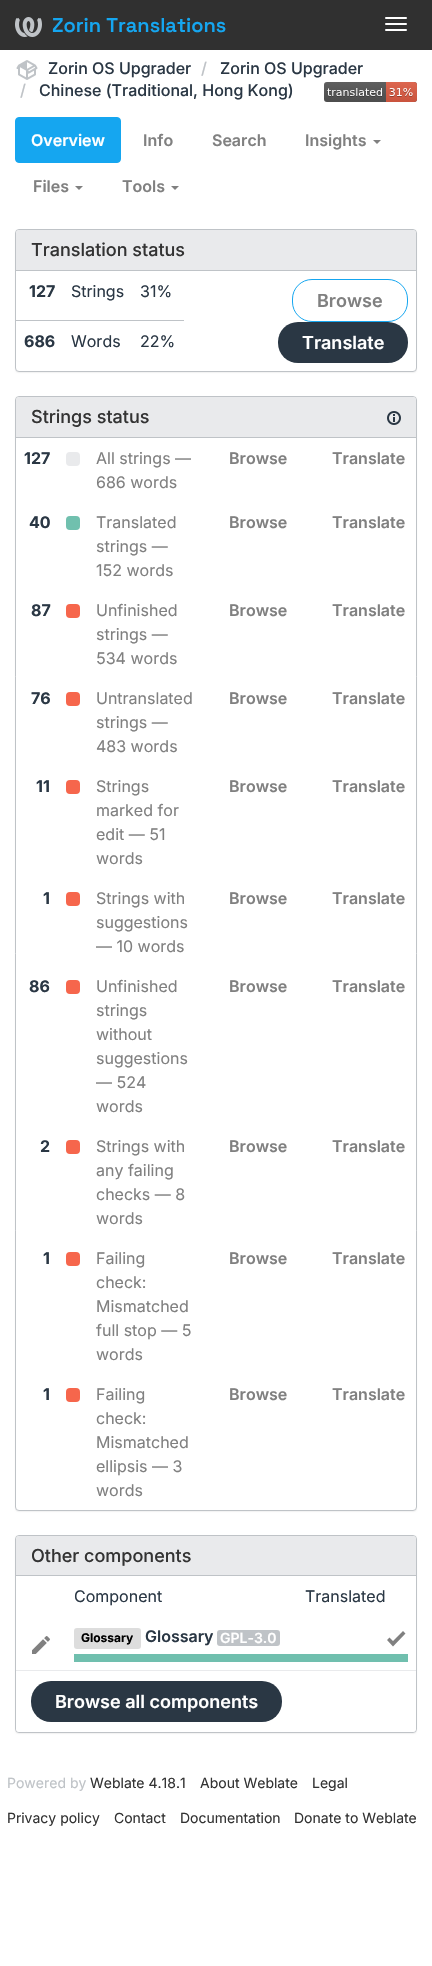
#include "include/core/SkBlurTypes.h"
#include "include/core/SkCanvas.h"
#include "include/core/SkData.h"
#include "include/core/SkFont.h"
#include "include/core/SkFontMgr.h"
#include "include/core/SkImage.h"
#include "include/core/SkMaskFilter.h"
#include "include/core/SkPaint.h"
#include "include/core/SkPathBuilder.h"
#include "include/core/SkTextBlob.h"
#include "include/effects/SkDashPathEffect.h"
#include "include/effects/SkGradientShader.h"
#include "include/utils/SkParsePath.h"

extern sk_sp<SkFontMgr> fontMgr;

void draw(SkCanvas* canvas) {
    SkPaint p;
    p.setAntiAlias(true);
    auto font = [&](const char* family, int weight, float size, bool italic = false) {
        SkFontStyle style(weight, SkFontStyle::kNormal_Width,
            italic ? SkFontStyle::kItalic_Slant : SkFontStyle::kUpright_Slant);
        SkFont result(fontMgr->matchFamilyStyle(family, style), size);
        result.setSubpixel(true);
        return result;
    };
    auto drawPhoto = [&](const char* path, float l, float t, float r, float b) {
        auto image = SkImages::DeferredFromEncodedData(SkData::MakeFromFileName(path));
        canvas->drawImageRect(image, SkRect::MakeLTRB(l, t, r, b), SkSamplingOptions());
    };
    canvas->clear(0xFFFFFFFF);
    p.setColor(0xFF303030);
    canvas->drawRect(SkRect::MakeLTRB(0, 0, 432, 50), p);
    drawPhoto("media/1.png", 15, 17, 42, 37);
    auto font1 = font("Space Grotesk", 600, 20);
    p.setColor(0xFF15A6F0);
    canvas->drawString("Zorin Translations", 52, 32, font1, p);
    p.setColor(0xFFFFFFFF);
    canvas->drawRoundRect(SkRect::MakeLTRB(385, 17, 407, 19), 1, 1, p);
    canvas->drawRoundRect(SkRect::MakeLTRB(385, 23, 407, 25), 1, 1, p);
    canvas->drawRoundRect(SkRect::MakeLTRB(385, 29, 407, 31), 1, 1, p);
    drawPhoto("media/2.png", 16, 60, 38, 80);
    auto font2 = font("Inter", 500, 16);
    p.setColor(0xFF2A3744);
    canvas->drawString("Zorin OS Upgrader", 48, 74, font2, p);
    p.setColor(0xFFBFC3C7);
    canvas->drawString("/", 201, 74, font2, p);
    p.setColor(0xFF2A3744);
    canvas->drawString("Zorin OS Upgrader", 220, 74, font2, p);
    p.setColor(0xFFBFC3C7);
    canvas->drawString("/", 20, 96, font2, p);
    p.setColor(0xFF2A3744);
    canvas->drawString("Chinese (Traditional, Hong Kong)", 39, 96, font2, p);
    drawPhoto("media/3.png", 324, 82, 417, 102);
    p.setColor(0xFF15A6F0);
    canvas->drawRoundRect(SkRect::MakeLTRB(15.5f, 117.5f, 120.5f, 162.5f), 3.5f, 3.5f, p);
    p.setStyle(SkPaint::kStroke_Style);
    p.setStrokeWidth(1);
    canvas->drawRoundRect(SkRect::MakeLTRB(15.5f, 117.5f, 120.5f, 162.5f), 3.5f, 3.5f, p);
    auto font3 = font("Inter", 600, 16);
    p.setStyle(SkPaint::kFill_Style);
    p.setColor(0xFFFFFFFF);
    canvas->drawString("Overview", 31, 146, font3, p);
    p.setColor(0xFF808080);
    {
        const struct { const char* s; float x, y; } items[] = {
            {"Info", 143, 146},
            {"Search", 212, 146},
            {"Insights", 305, 146},
        };
        for (auto [s, x, y] : items) {
            canvas->drawString(s, x, y, font3, p);
        }
    }
    canvas->drawPath(SkPathBuilder().moveTo(373, 140).lineTo(381, 140).lineTo(377, 144).close().detach(), p);
    canvas->drawString("Files", 33, 192, font3, p);
    canvas->drawPath(SkPathBuilder().moveTo(75, 186).lineTo(83, 186).lineTo(79, 190).close().detach(), p);
    canvas->drawString("Tools", 122, 192, font3, p);
    canvas->drawPath(SkPathBuilder().moveTo(171, 186).lineTo(179, 186).lineTo(175, 190).close().detach(), p);
    p.setColor(0x0D000000);
    p.setMaskFilter(SkMaskFilter::MakeBlur(kNormal_SkBlurStyle, 0.5f));
    canvas->drawRoundRect(SkRect::MakeLTRB(15, 230, 417, 373), 4, 4, p);
    p.setMaskFilter(nullptr);
    p.setColor(0xFFFFFFFF);
    canvas->drawRoundRect(SkRect::MakeLTRB(15.5f, 229.5f, 416.5f, 371.5f), 3.5f, 3.5f, p);
    p.setStyle(SkPaint::kStroke_Style);
    p.setColor(0xFFBFC3C7);
    canvas->drawRoundRect(SkRect::MakeLTRB(15.5f, 229.5f, 416.5f, 371.5f), 3.5f, 3.5f, p);
    p.setStyle(SkPaint::kFill_Style);
    p.setColor(0xFFE9EAEC);
    canvas->drawPath(SkPathBuilder().moveTo(19, 230).lineTo(413, 230).cubicTo(414.5f, 230, 416, 231.5f, 416, 233).lineTo(416, 271).lineTo(16, 271).lineTo(16, 233).cubicTo(16, 231.5f, 17.5f, 230, 19, 230).close().detach(), p);
    p.setColor(0xFFBFC3C7);
    canvas->drawRect(SkRect::MakeLTRB(16, 270, 416, 271), p);
    auto font4 = font("Inter", 500, 18);
    p.setColor(0xFF333333);
    canvas->drawString("Translation status", 31, 256, font4, p);
    auto font5 = font("Inter", 700, 16);
    p.setColor(0xFF2A3744);
    canvas->drawString("127", 29, 297, font5, p);
    auto font6 = font("Inter", 400, 16);
    canvas->drawString("Strings", 71, 297, font6, p);
    canvas->drawString("31%", 140, 297, font6, p);
    p.setStyle(SkPaint::kStroke_Style);
    p.setColor(0xFF15A6F0);
    canvas->drawRoundRect(SkRect::MakeLTRB(292.5f, 279.5f, 407.5f, 321.5f), 19.5f, 19.5f, p);
    auto font7 = font("Inter", 600, 18);
    p.setStyle(SkPaint::kFill_Style);
    p.setColor(0xFF808080);
    canvas->drawString("Browse", 317, 307, font7, p);
    p.setColor(0xFF2A3744);
    canvas->drawRoundRect(SkRect::MakeLTRB(278, 322, 408, 363), 20, 20, p);
    p.setColor(0xFFFFFFFF);
    canvas->drawString("Translate", 302, 349, font7, p);
    p.setColor(0xFF2A3744);
    canvas->drawString("686", 24, 347, font5, p);
    canvas->drawString("Words", 71, 347, font6, p);
    p.setColor(0xFFBFC3C7);
    canvas->drawRect(SkRect::MakeLTRB(16, 320, 184, 321), p);
    p.setColor(0xFF2A3744);
    canvas->drawString("22%", 140, 347, font6, p);
    p.setColor(0x0D000000);
    p.setMaskFilter(SkMaskFilter::MakeBlur(kNormal_SkBlurStyle, 0.5f));
    canvas->drawRoundRect(SkRect::MakeLTRB(15, 397, 417, 1512), 4, 4, p);
    p.setMaskFilter(nullptr);
    p.setColor(0xFFFFFFFF);
    canvas->drawRoundRect(SkRect::MakeLTRB(15.5f, 396.5f, 416.5f, 1510.5f), 3.5f, 3.5f, p);
    p.setStyle(SkPaint::kStroke_Style);
    p.setColor(0xFFBFC3C7);
    canvas->drawRoundRect(SkRect::MakeLTRB(15.5f, 396.5f, 416.5f, 1510.5f), 3.5f, 3.5f, p);
    p.setStyle(SkPaint::kFill_Style);
    p.setColor(0xFFE9EAEC);
    canvas->drawPath(SkPathBuilder().moveTo(19, 397).lineTo(413, 397).cubicTo(414.5f, 397, 416, 398.5f, 416, 400).lineTo(416, 438).lineTo(16, 438).lineTo(16, 400).cubicTo(16, 398.5f, 17.5f, 397, 19, 397).close().detach(), p);
    p.setColor(0xFFBFC3C7);
    canvas->drawRect(SkRect::MakeLTRB(16, 437, 416, 438), p);
    p.setColor(0xFF333333);
    canvas->drawString("Strings status", 31, 423, font4, p);
    drawPhoto("media/4.png", 387, 411, 401, 425);
    p.setColor(0xFF2A3744);
    canvas->drawString("127", 24, 464, font5, p);
    p.setColor(0xFFE9EAEC);
    canvas->drawRoundRect(SkRect::MakeLTRB(66, 452, 80, 466), 4, 4, p);
    p.setColor(0xFF808080);
    canvas->drawString("All strings —", 96, 464, font6, p);
    canvas->drawString("686 words", 96, 488, font6, p);
    canvas->drawString("Browse", 229, 464, font3, p);
    canvas->drawString("Translate", 332, 464, font3, p);
    p.setColor(0xFF2A3744);
    canvas->drawString("40", 29, 528, font5, p);
    p.setColor(0xFFE9EAEC);
    canvas->drawRoundRect(SkRect::MakeLTRB(66, 516, 80, 530), 4, 4, p);
    p.setColor(0x991FA385);
    canvas->drawRoundRect(SkRect::MakeLTRB(66, 516, 80, 530), 4, 4, p);
    p.setColor(0xFF808080);
    {
        const struct { const char* s; float x, y; } items[] = {
            {"Translated", 96, 528},
            {"strings —", 96, 552},
            {"152 words", 96, 576},
        };
        for (auto [s, x, y] : items) {
            canvas->drawString(s, x, y, font6, p);
        }
    }
    canvas->drawString("Browse", 229, 528, font3, p);
    canvas->drawString("Translate", 332, 528, font3, p);
    p.setColor(0xFF2A3744);
    canvas->drawString("87", 31, 616, font5, p);
    p.setColor(0xFFF6664C);
    canvas->drawRoundRect(SkRect::MakeLTRB(66, 604, 80, 618), 4, 4, p);
    p.setColor(0xFF808080);
    {
        const struct { const char* s; float x, y; } items[] = {
            {"Unfinished", 96, 616},
            {"strings —", 96, 640},
            {"534 words", 96, 664},
        };
        for (auto [s, x, y] : items) {
            canvas->drawString(s, x, y, font6, p);
        }
    }
    canvas->drawString("Browse", 229, 616, font3, p);
    canvas->drawString("Translate", 332, 616, font3, p);
    p.setColor(0xFF2A3744);
    canvas->drawString("76", 31, 704, font5, p);
    p.setColor(0xFFF6664C);
    canvas->drawRoundRect(SkRect::MakeLTRB(66, 692, 80, 706), 4, 4, p);
    p.setColor(0xFF808080);
    {
        const struct { const char* s; float x, y; } items[] = {
            {"Untranslated", 96, 704},
            {"strings —", 96, 728},
            {"483 words", 96, 752},
        };
        for (auto [s, x, y] : items) {
            canvas->drawString(s, x, y, font6, p);
        }
    }
    canvas->drawString("Browse", 229, 704, font3, p);
    canvas->drawString("Translate", 332, 704, font3, p);
    p.setColor(0xFF2A3744);
    canvas->drawString("11", 36, 792, font5, p);
    p.setColor(0xFFF6664C);
    canvas->drawRoundRect(SkRect::MakeLTRB(66, 780, 80, 794), 4, 4, p);
    p.setColor(0xFF808080);
    {
        const struct { const char* s; float x, y; } items[] = {
            {"Strings", 96, 792},
            {"marked for", 96, 816},
            {"edit — 51", 96, 840},
            {"words", 96, 864},
        };
        for (auto [s, x, y] : items) {
            canvas->drawString(s, x, y, font6, p);
        }
    }
    canvas->drawString("Browse", 229, 792, font3, p);
    canvas->drawString("Translate", 332, 792, font3, p);
    p.setColor(0xFF2A3744);
    canvas->drawString("1", 43, 904, font5, p);
    p.setColor(0xFFF6664C);
    canvas->drawRoundRect(SkRect::MakeLTRB(66, 892, 80, 906), 4, 4, p);
    p.setColor(0xFF808080);
    {
        const struct { const char* s; float x, y; } items[] = {
            {"Strings with", 96, 904},
            {"suggestions", 96, 928},
            {"— 10 words", 96, 952},
        };
        for (auto [s, x, y] : items) {
            canvas->drawString(s, x, y, font6, p);
        }
    }
    canvas->drawString("Browse", 229, 904, font3, p);
    canvas->drawString("Translate", 332, 904, font3, p);
    p.setColor(0xFF2A3744);
    canvas->drawString("86", 29, 992, font5, p);
    p.setColor(0xFFF6664C);
    canvas->drawRoundRect(SkRect::MakeLTRB(66, 980, 80, 994), 4, 4, p);
    p.setColor(0xFF808080);
    {
        const struct { const char* s; float x, y; } items[] = {
            {"Unfinished", 96, 992},
            {"strings", 96, 1016},
            {"without", 96, 1040},
            {"suggestions", 96, 1064},
            {"— 524", 96, 1088},
            {"words", 96, 1112},
        };
        for (auto [s, x, y] : items) {
            canvas->drawString(s, x, y, font6, p);
        }
    }
    canvas->drawString("Browse", 229, 992, font3, p);
    canvas->drawString("Translate", 332, 992, font3, p);
    p.setColor(0xFF2A3744);
    canvas->drawString("2", 40, 1152, font5, p);
    p.setColor(0xFFF6664C);
    canvas->drawRoundRect(SkRect::MakeLTRB(66, 1140, 80, 1154), 4, 4, p);
    p.setColor(0xFF808080);
    {
        const struct { const char* s; float x, y; } items[] = {
            {"Strings with", 96, 1152},
            {"any failing", 96, 1176},
            {"checks — 8", 96, 1200},
            {"words", 96, 1224},
        };
        for (auto [s, x, y] : items) {
            canvas->drawString(s, x, y, font6, p);
        }
    }
    canvas->drawString("Browse", 229, 1152, font3, p);
    canvas->drawString("Translate", 332, 1152, font3, p);
    p.setColor(0xFF2A3744);
    canvas->drawString("1", 43, 1264, font5, p);
    p.setColor(0xFFF6664C);
    canvas->drawRoundRect(SkRect::MakeLTRB(66, 1252, 80, 1266), 4, 4, p);
    p.setColor(0xFF808080);
    {
        const struct { const char* s; float x, y; } items[] = {
            {"Failing", 96, 1264},
            {"check:", 96, 1288},
            {"Mismatched", 96, 1312},
            {"full stop — 5", 96, 1336},
            {"words", 96, 1360},
        };
        for (auto [s, x, y] : items) {
            canvas->drawString(s, x, y, font6, p);
        }
    }
    canvas->drawString("Browse", 229, 1264, font3, p);
    canvas->drawString("Translate", 332, 1264, font3, p);
    p.setColor(0xFF2A3744);
    canvas->drawString("1", 43, 1400, font5, p);
    p.setColor(0xFFF6664C);
    canvas->drawRoundRect(SkRect::MakeLTRB(66, 1388, 80, 1402), 4, 4, p);
    p.setColor(0xFF808080);
    {
        const struct { const char* s; float x, y; } items[] = {
            {"Failing", 96, 1400},
            {"check:", 96, 1424},
            {"Mismatched", 96, 1448},
            {"ellipsis — 3", 96, 1472},
            {"words", 96, 1496},
        };
        for (auto [s, x, y] : items) {
            canvas->drawString(s, x, y, font6, p);
        }
    }
    canvas->drawString("Browse", 229, 1400, font3, p);
    canvas->drawString("Translate", 332, 1400, font3, p);
    p.setColor(0x0D000000);
    p.setMaskFilter(SkMaskFilter::MakeBlur(kNormal_SkBlurStyle, 0.5f));
    canvas->drawRoundRect(SkRect::MakeLTRB(15, 1536, 417, 1734), 4, 4, p);
    p.setMaskFilter(nullptr);
    p.setColor(0xFFFFFFFF);
    canvas->drawRoundRect(SkRect::MakeLTRB(15.5f, 1535.5f, 416.5f, 1732.5f), 3.5f, 3.5f, p);
    p.setStyle(SkPaint::kStroke_Style);
    p.setColor(0xFFBFC3C7);
    canvas->drawRoundRect(SkRect::MakeLTRB(15.5f, 1535.5f, 416.5f, 1732.5f), 3.5f, 3.5f, p);
    p.setStyle(SkPaint::kFill_Style);
    p.setColor(0xFFE9EAEC);
    canvas->drawPath(SkPathBuilder().moveTo(19, 1536).lineTo(413, 1536).cubicTo(414.5f, 1536, 416, 1537.5f, 416, 1539).lineTo(416, 1576).lineTo(16, 1576).lineTo(16, 1539).cubicTo(16, 1537.5f, 17.5f, 1536, 19, 1536).close().detach(), p);
    p.setColor(0xFFBFC3C7);
    canvas->drawRect(SkRect::MakeLTRB(16, 1575, 416, 1576), p);
    p.setColor(0xFF333333);
    canvas->drawString("Other components", 31, 1562, font4, p);
    p.setColor(0xFF2A3744);
    canvas->drawString("Component", 74, 1602, font6, p);
    canvas->drawString("Translated", 305, 1602, font6, p);
    drawPhoto("media/5.png", 32, 1636, 50, 1654);
    p.setColor(0xFFDDDDDD);
    canvas->drawRoundRect(SkRect::MakeLTRB(74, 1628, 141, 1649), 3, 3, p);
    auto font8 = font("Inter", 700, 12);
    p.setColor(0xFF000000);
    canvas->drawString("Glossary", 81, 1642, font8, p);
    p.setColor(0xFF2A3744);
    canvas->drawString("Glossary", 145, 1642, font3, p);
    p.setColor(0xFFBFC3C7);
    canvas->drawRoundRect(SkRect::MakeLTRB(217, 1630, 280, 1646), 3, 3, p);
    auto font9 = font("Inter", 600, 14);
    p.setColor(0xFFFFFFFF);
    canvas->drawString("GPL-3.0", 220, 1643, font9, p);
    p.setColor(0xFF808080);
    canvas->drawPath(SkPathBuilder().moveTo(393, 1646.5f).lineTo(387, 1640).lineTo(389.5f, 1637.5f).lineTo(393, 1641).lineTo(403, 1631).lineTo(405.5f, 1633.5f).close().detach(), p);
    p.setColor(0xFF70BFAE);
    canvas->drawRect(SkRect::MakeLTRB(74, 1654, 408, 1662), p);
    p.setColor(0xFFFFFFFF);
    canvas->drawPath(SkPathBuilder().moveTo(16, 1670).lineTo(416, 1670).lineTo(416, 1729).cubicTo(416, 1730.5f, 414.5f, 1732, 413, 1732).lineTo(19, 1732).cubicTo(17.5f, 1732, 16, 1730.5f, 16, 1729).close().detach(), p);
    p.setColor(0xFFE9EAEC);
    canvas->drawRect(SkRect::MakeLTRB(16, 1670, 416, 1671), p);
    p.setColor(0xFF2A3744);
    canvas->drawRoundRect(SkRect::MakeLTRB(31, 1681, 282, 1722), 20, 20, p);
    p.setColor(0xFFFFFFFF);
    canvas->drawString("Browse all components", 55, 1708, font7, p);
    auto font10 = font("Inter", 400, 14);
    p.setColor(0xFFBFC3C7);
    canvas->drawString("Powered by", 7, 1788, font10, p);
    p.setColor(0xFF333333);
    {
        const struct { const char* s; float x, y; } items[] = {
            {"Weblate 4.18.1", 90, 1788},
            {"About Weblate", 200, 1788},
            {"Legal", 312, 1788},
            {"Privacy policy", 7, 1823},
            {"Contact", 114, 1823},
            {"Documentation", 180, 1823},
            {"Donate to Weblate", 294, 1823},
        };
        for (auto [s, x, y] : items) {
            canvas->drawString(s, x, y, font10, p);
        }
    }
}
